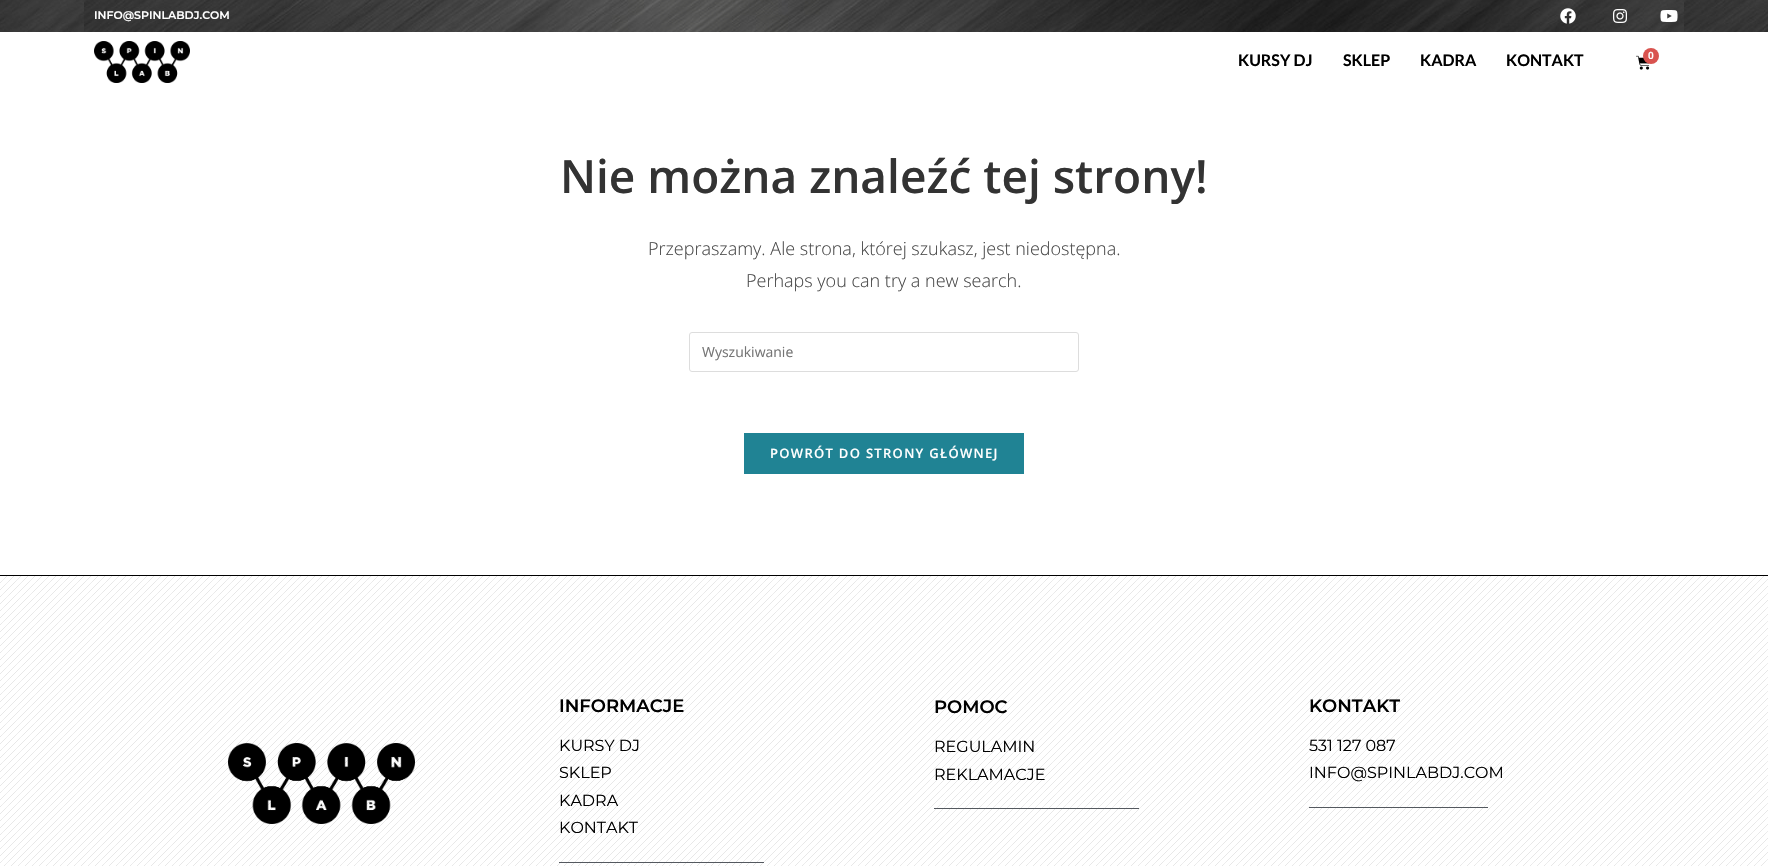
#include "include/core/SkBlurTypes.h"
#include "include/core/SkCanvas.h"
#include "include/core/SkData.h"
#include "include/core/SkFont.h"
#include "include/core/SkFontMgr.h"
#include "include/core/SkImage.h"
#include "include/core/SkMaskFilter.h"
#include "include/core/SkPaint.h"
#include "include/core/SkPathBuilder.h"
#include "include/core/SkTextBlob.h"
#include "include/effects/SkDashPathEffect.h"
#include "include/effects/SkGradientShader.h"
#include "include/utils/SkParsePath.h"

extern sk_sp<SkFontMgr> fontMgr;

void draw(SkCanvas* canvas) {
    SkPaint p;
    p.setAntiAlias(true);
    auto font = [&](const char* family, int weight, float size, bool italic = false) {
        SkFontStyle style(weight, SkFontStyle::kNormal_Width,
            italic ? SkFontStyle::kItalic_Slant : SkFontStyle::kUpright_Slant);
        SkFont result(fontMgr->matchFamilyStyle(family, style), size);
        result.setSubpixel(true);
        return result;
    };
    auto drawTracked = [&](const char* s, float x, float y, const SkFont& font, const SkPaint& ink, float letter, float word) {
        std::vector<SkGlyphID> glyphs(font.countText(s, strlen(s), SkTextEncoding::kUTF8));
        std::vector<float> xs(glyphs.size());
        font.textToGlyphs(s, strlen(s), SkTextEncoding::kUTF8, glyphs);
        font.getXPos(glyphs, xs, x);
        float extra = 0;
        for (size_t i = 0; i < glyphs.size(); i++) {
            xs[i] += extra;
            extra += letter + word * (glyphs[i] == font.unicharToGlyph(' '));
        }
        canvas->drawTextBlob(SkTextBlob::MakeFromPosHGlyphs(glyphs, xs, y, font), 0, 0, ink);
    };
    auto drawPhoto = [&](const char* path, float l, float t, float r, float b) {
        auto image = SkImages::DeferredFromEncodedData(SkData::MakeFromFileName(path));
        canvas->drawImageRect(image, SkRect::MakeLTRB(l, t, r, b), SkSamplingOptions());
    };
    canvas->clear(0xFFFFFFFF);
    drawPhoto("media/1.png", 0, 0, 1768, 32);
    auto font1 = font("Montserrat", 600, 11);
    p.setColor(0xFFFFFFFF);
    canvas->drawString("INFO@SPINLABDJ.COM", 94, 19, font1, p);
    drawPhoto("media/2.png", 1560, 8, 1576, 24);
    drawPhoto("media/3.png", 1613, 9, 1627, 23);
    drawPhoto("media/4.png", 1660, 10, 1678, 22);
    drawPhoto("media/5.png", 94, 41, 190, 83);
    auto font2 = font("Lato", 700, 16);
    p.setColor(0xFF000000);
    {
        const struct { const char* s; float x, y; } items[] = {
            {"KURSY DJ", 1238, 66},
            {"SKLEP", 1343, 66},
            {"KADRA", 1420, 66},
            {"KONTAKT", 1506, 66},
        };
        for (auto [s, x, y] : items) {
            canvas->drawString(s, x, y, font2, p);
        }
    }
    drawPhoto("media/6.png", 1636, 55, 1650, 70);
    p.setColor(0xFFD9534F);
    canvas->drawCircle(1651, 56, 8, p);
    auto font3 = font("Roboto", 600, 10);
    p.setColor(0xFFFFFFFF);
    canvas->drawString("0", 1648, 59, font3, p);
    auto font4 = font("Open Sans", 600, 46);
    p.setColor(0xFF333333);
    canvas->drawString("Nie można znaleźć tej strony!", 560, 193, font4, p);
    auto font5 = font("Open Sans", 300, 18);
    p.setColor(0xFF4A4A4A);
    canvas->drawString("Przepraszamy. Ale strona, której szukasz, jest niedostępna.", 648, 255, font5, p);
    canvas->drawString("Perhaps you can try a new search.", 746, 287, font5, p);
    p.setStyle(SkPaint::kStroke_Style);
    p.setStrokeWidth(1);
    p.setColor(0xFFDDDDDD);
    canvas->drawRoundRect(SkRect::MakeLTRB(689.5f, 332.5f, 1078.5f, 371.5f), 2.5f, 2.5f, p);
    auto font6 = font("Open Sans", 400, 14);
    p.setStyle(SkPaint::kFill_Style);
    p.setColor(0xFF757575);
    canvas->drawString("Wyszukiwanie", 702, 357, font6, p);
    p.setColor(0xFF208394);
    canvas->drawRect(SkRect::MakeLTRB(744, 433, 1024, 474), p);
    auto font7 = font("Open Sans", 600, 13);
    p.setColor(0xFFFFFFFF);
    drawTracked("POWRÓT DO STRONY GŁÓWNEJ", 770, 458, font7, p, 1.3f, 0);
    p.setColor(0xFF000000);
    canvas->drawRect(SkRect::MakeLTRB(0, 575, 1768, 576), p);
    drawPhoto("media/7.png", 0, 576, 1768, 866);
    drawPhoto("media/8.png", 228, 743, 415, 824);
    auto font8 = font("Montserrat", 600, 18);
    canvas->drawString("INFORMACJE", 559, 712, font8, p);
    auto font9 = font("Montserrat", 400, 16);
    {
        const struct { const char* s; float x, y; } items[] = {
            {"KURSY DJ", 559, 751},
            {"SKLEP", 559, 778},
            {"KADRA", 559, 806},
            {"KONTAKT", 559, 833},
        };
        for (auto [s, x, y] : items) {
            canvas->drawString(s, x, y, font9, p);
        }
    }
    p.setColor(0xFF54595F);
    canvas->drawRect(SkRect::MakeLTRB(559, 862, 764, 863), p);
    p.setColor(0xFF000000);
    canvas->drawString("POMOC", 934, 713, font8, p);
    canvas->drawString("REGULAMIN", 934, 752, font9, p);
    canvas->drawString("REKLAMACJE", 934, 780, font9, p);
    p.setColor(0xFF54595F);
    canvas->drawRect(SkRect::MakeLTRB(934, 808, 1139, 809), p);
    p.setColor(0xFF000000);
    canvas->drawString("KONTAKT", 1309, 712, font8, p);
    canvas->drawString("531 127 087", 1309, 751, font9, p);
    canvas->drawString("INFO@SPINLABDJ.COM", 1309, 778, font9, p);
    p.setColor(0xFF54595F);
    canvas->drawRect(SkRect::MakeLTRB(1309, 807, 1488, 808), p);
}
